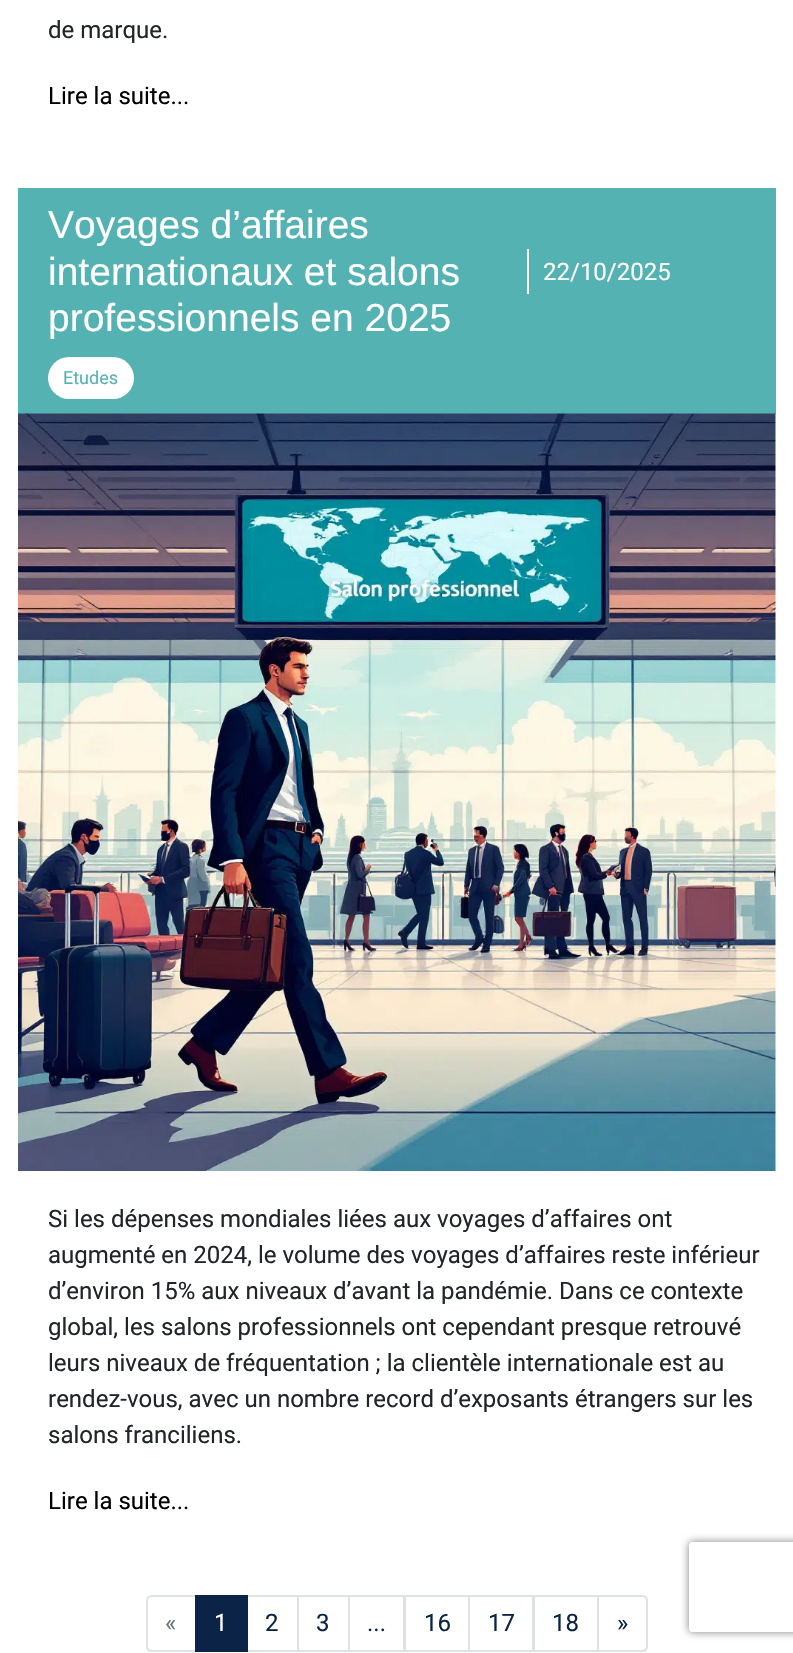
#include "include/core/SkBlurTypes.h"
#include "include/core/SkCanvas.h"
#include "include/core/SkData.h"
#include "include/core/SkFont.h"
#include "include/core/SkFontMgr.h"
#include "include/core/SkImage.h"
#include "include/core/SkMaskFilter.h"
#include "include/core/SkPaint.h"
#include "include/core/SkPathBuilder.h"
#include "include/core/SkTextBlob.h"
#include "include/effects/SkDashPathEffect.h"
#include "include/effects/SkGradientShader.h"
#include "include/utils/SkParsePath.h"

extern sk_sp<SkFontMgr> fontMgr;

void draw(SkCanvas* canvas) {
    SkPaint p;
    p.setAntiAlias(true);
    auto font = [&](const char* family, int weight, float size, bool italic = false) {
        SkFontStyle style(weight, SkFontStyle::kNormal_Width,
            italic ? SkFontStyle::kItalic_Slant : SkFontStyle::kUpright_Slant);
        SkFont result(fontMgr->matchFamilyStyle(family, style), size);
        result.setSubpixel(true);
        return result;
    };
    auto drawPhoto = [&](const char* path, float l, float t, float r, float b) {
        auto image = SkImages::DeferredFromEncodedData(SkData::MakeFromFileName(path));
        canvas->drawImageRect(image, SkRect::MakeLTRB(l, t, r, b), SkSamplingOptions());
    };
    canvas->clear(0xFFFFFFFF);
    auto font1 = font("Roboto", 400, 24);
    p.setColor(0xFF212529);
    canvas->drawString("de marque.", 48, 38, font1, p);
    p.setColor(0xFF000000);
    canvas->drawString("Lire la suite...", 48, 104, font1, p);
    p.setColor(0xFF55B2B3);
    canvas->drawRect(SkRect::MakeLTRB(18, 188, 776, 414), p);
    auto font2 = font("Liberation Sans", 400, 39);
    p.setColor(0xFFFFFFFF);
    {
        const struct { const char* s; float x, y; } items[] = {
            {"Voyages d’affaires", 48, 238},
            {"internationaux et salons", 48, 285},
            {"professionnels en 2025", 48, 331},
        };
        for (auto [s, x, y] : items) {
            canvas->drawString(s, x, y, font2, p);
        }
    }
    canvas->drawRect(SkRect::MakeLTRB(527, 249, 529, 294), p);
    canvas->drawString("22/10/2025", 543, 280, font1, p);
    canvas->drawRoundRect(SkRect::MakeLTRB(48, 357, 134, 399), 21, 21, p);
    auto font3 = font("Roboto", 400, 18);
    p.setColor(0xFF55B2B3);
    canvas->drawString("Etudes", 63, 384, font3, p);
    drawPhoto("media/1.png", 18, 413, 776, 1171);
    p.setColor(0xFF212529);
    {
        const struct { const char* s; float x, y; } items[] = {
            {"Si les dépenses mondiales liées aux voyages d’affaires ont", 48, 1227},
            {"augmenté en 2024, le volume des voyages d’affaires reste inférieur", 48, 1263},
            {"d’environ 15% aux niveaux d’avant la pandémie. Dans ce contexte", 48, 1299},
            {"global, les salons professionnels ont cependant presque retrouvé", 48, 1335},
            {"leurs niveaux de fréquentation ; la clientèle internationale est au", 48, 1371},
            {"rendez-vous, avec un nombre record d’exposants étrangers sur les", 48, 1407},
            {"salons franciliens.", 48, 1443},
        };
        for (auto [s, x, y] : items) {
            canvas->drawString(s, x, y, font1, p);
        }
    }
    p.setColor(0xFF000000);
    canvas->drawString("Lire la suite...", 48, 1509, font1, p);
    p.setStyle(SkPaint::kStroke_Style);
    p.setStrokeWidth(2);
    p.setColor(0xFFDEE2E6);
    canvas->drawPath(SkPathBuilder().moveTo(152, 1596).lineTo(196, 1596).lineTo(196, 1651).lineTo(152, 1651).cubicTo(149, 1651, 147, 1649, 147, 1646).lineTo(147, 1601).cubicTo(147, 1598, 149, 1596, 152, 1596).close().detach(), p);
    p.setStyle(SkPaint::kFill_Style);
    p.setColor(0xFF6C757D);
    canvas->drawString("«", 165, 1631, font1, p);
    p.setStyle(SkPaint::kStroke_Style);
    p.setColor(0xFFDEE2E6);
    canvas->drawRect(SkRect::MakeLTRB(247, 1596, 298, 1651), p);
    p.setStyle(SkPaint::kFill_Style);
    p.setColor(0xFF0A2346);
    canvas->drawRect(SkRect::MakeLTRB(195, 1595, 248, 1652), p);
    p.setColor(0xFFFFFFFF);
    canvas->drawString("1", 214, 1631, font1, p);
    p.setColor(0xFF0A2346);
    canvas->drawString("2", 265, 1631, font1, p);
    p.setStyle(SkPaint::kStroke_Style);
    p.setColor(0xFFDEE2E6);
    canvas->drawRect(SkRect::MakeLTRB(298, 1596, 349, 1651), p);
    p.setStyle(SkPaint::kFill_Style);
    p.setColor(0xFF0A2346);
    canvas->drawString("3", 316, 1631, font1, p);
    p.setStyle(SkPaint::kStroke_Style);
    p.setColor(0xFFDEE2E6);
    canvas->drawRect(SkRect::MakeLTRB(349, 1596, 404, 1651), p);
    p.setStyle(SkPaint::kFill_Style);
    p.setColor(0xFF0A2346);
    canvas->drawString("...", 367, 1631, font1, p);
    p.setStyle(SkPaint::kStroke_Style);
    p.setColor(0xFFDEE2E6);
    canvas->drawRect(SkRect::MakeLTRB(405, 1596, 469, 1651), p);
    p.setStyle(SkPaint::kFill_Style);
    p.setColor(0xFF0A2346);
    canvas->drawString("16", 424, 1631, font1, p);
    p.setStyle(SkPaint::kStroke_Style);
    p.setColor(0xFFDEE2E6);
    canvas->drawRect(SkRect::MakeLTRB(469, 1596, 533, 1651), p);
    p.setStyle(SkPaint::kFill_Style);
    p.setColor(0xFF0A2346);
    canvas->drawString("17", 488, 1631, font1, p);
    p.setStyle(SkPaint::kStroke_Style);
    p.setColor(0xFFDEE2E6);
    canvas->drawRect(SkRect::MakeLTRB(534, 1596, 598, 1651), p);
    p.setStyle(SkPaint::kFill_Style);
    p.setColor(0xFF0A2346);
    canvas->drawString("18", 552, 1631, font1, p);
    p.setColor(0xFFFFFFFF);
    canvas->drawPath(SkPathBuilder().moveTo(598, 1596).lineTo(642, 1596).cubicTo(645, 1596, 647, 1598, 647, 1601).lineTo(647, 1646).cubicTo(647, 1649, 645, 1651, 642, 1651).lineTo(598, 1651).close().detach(), p);
    p.setStyle(SkPaint::kStroke_Style);
    p.setColor(0xFFDEE2E6);
    canvas->drawPath(SkPathBuilder().moveTo(598, 1596).lineTo(642, 1596).cubicTo(645, 1596, 647, 1598, 647, 1601).lineTo(647, 1646).cubicTo(647, 1649, 645, 1651, 642, 1651).lineTo(598, 1651).close().detach(), p);
    p.setStyle(SkPaint::kFill_Style);
    p.setColor(0xFF0A2346);
    canvas->drawString("»", 617, 1631, font1, p);
    canvas->save();
    canvas->clipPath(SkPathBuilder(SkPathFillType::kEvenOdd).moveTo(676, 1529).lineTo(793, 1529).lineTo(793, 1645).lineTo(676, 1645).close().moveTo(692, 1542).lineTo(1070, 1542).cubicTo(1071.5f, 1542, 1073, 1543.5f, 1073, 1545).lineTo(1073, 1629).cubicTo(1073, 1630.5f, 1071.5f, 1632, 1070, 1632).lineTo(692, 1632).cubicTo(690.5f, 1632, 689, 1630.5f, 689, 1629).lineTo(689, 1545).cubicTo(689, 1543.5f, 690.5f, 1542, 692, 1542).close().detach(), true);
    p.setColor(0xFF808080);
    p.setMaskFilter(SkMaskFilter::MakeBlur(kNormal_SkBlurStyle, 4));
    canvas->drawRoundRect(SkRect::MakeLTRB(689, 1542, 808, 1632), 3, 3, p);
    p.setMaskFilter(nullptr);
    canvas->restore();
}
